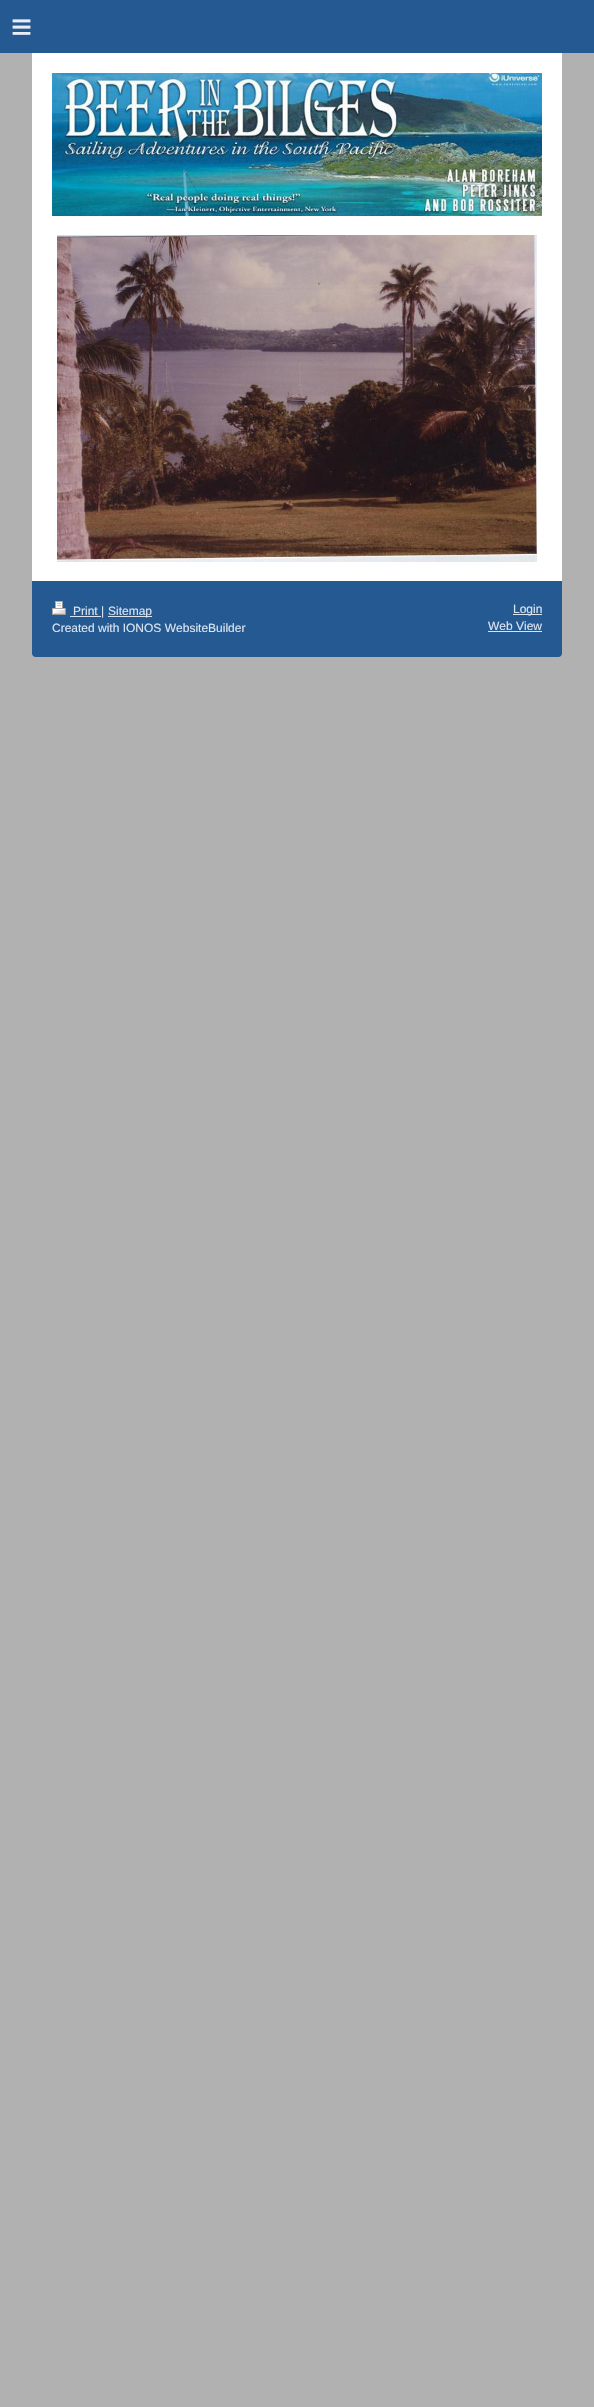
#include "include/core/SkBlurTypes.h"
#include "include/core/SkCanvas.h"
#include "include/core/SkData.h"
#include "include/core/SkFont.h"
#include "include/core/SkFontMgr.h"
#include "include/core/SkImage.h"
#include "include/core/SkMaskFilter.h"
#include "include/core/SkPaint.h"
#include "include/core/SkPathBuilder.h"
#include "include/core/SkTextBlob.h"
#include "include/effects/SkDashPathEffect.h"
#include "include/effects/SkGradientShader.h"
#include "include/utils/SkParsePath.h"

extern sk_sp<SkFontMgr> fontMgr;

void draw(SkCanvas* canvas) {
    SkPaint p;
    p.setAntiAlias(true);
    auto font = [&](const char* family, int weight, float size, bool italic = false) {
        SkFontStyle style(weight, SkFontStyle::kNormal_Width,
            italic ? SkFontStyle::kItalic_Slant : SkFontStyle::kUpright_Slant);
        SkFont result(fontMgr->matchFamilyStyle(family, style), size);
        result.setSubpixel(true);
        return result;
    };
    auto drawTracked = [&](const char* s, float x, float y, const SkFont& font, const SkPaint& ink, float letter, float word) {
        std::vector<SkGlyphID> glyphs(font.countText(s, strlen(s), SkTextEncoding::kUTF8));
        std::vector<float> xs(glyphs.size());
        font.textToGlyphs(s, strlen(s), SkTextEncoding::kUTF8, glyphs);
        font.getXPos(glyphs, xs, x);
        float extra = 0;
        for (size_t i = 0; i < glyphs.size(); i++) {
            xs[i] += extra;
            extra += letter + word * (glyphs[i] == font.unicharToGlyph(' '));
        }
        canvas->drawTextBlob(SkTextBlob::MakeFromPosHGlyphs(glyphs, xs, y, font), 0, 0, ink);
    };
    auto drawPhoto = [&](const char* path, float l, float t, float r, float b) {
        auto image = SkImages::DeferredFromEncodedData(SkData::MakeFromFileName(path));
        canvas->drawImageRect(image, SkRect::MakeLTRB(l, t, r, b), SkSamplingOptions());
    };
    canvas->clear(0xFFB1B1B1);
    p.setColor(0xFFFFFFFF);
    canvas->drawPath(SkPathBuilder().moveTo(32, 30).lineTo(562, 30).lineTo(562, 654).cubicTo(562, 655.5f, 560.5f, 657, 559, 657).lineTo(35, 657).cubicTo(33.5f, 657, 32, 655.5f, 32, 654).close().detach(), p);
    p.setColor(0xFF245992);
    canvas->drawRect(SkRect::MakeLTRB(0, 0, 594, 53), p);
    auto font1 = font("Liberation Sans", 400, 36);
    p.setColor(0xFFE9EEF4);
    drawTracked("≡", 11, 39, font1, p, 10, 0);
    drawPhoto("media/1.png", 52, 73, 542, 216);
    drawPhoto("media/2.png", 57, 235, 537, 562);
    p.setColor(0xFF245992);
    canvas->drawPath(SkPathBuilder().moveTo(32, 581).lineTo(562, 581).lineTo(562, 654).cubicTo(562, 655.5f, 560.5f, 657, 559, 657).lineTo(35, 657).cubicTo(33.5f, 657, 32, 655.5f, 32, 654).close().detach(), p);
    drawPhoto("media/3.png", 52, 601, 66, 615);
    p.setColor(0xFFD9E4F0);
    canvas->drawRect(SkRect::MakeLTRB(70, 616, 101, 617), p);
    auto font2 = font("Liberation Sans", 400, 12);
    canvas->drawString("Print |", 73, 615, font2, p);
    canvas->drawRect(SkRect::MakeLTRB(108, 616, 152, 617), p);
    canvas->drawString("Sitemap", 108, 615, font2, p);
    canvas->drawString("Created with IONOS WebsiteBuilder", 52, 632, font2, p);
    canvas->drawRect(SkRect::MakeLTRB(513, 614, 542, 615), p);
    canvas->drawString("Login", 513, 613, font2, p);
    canvas->drawString("Web View", 488, 630, font2, p);
    canvas->drawRect(SkRect::MakeLTRB(488, 631, 542, 632), p);
}
